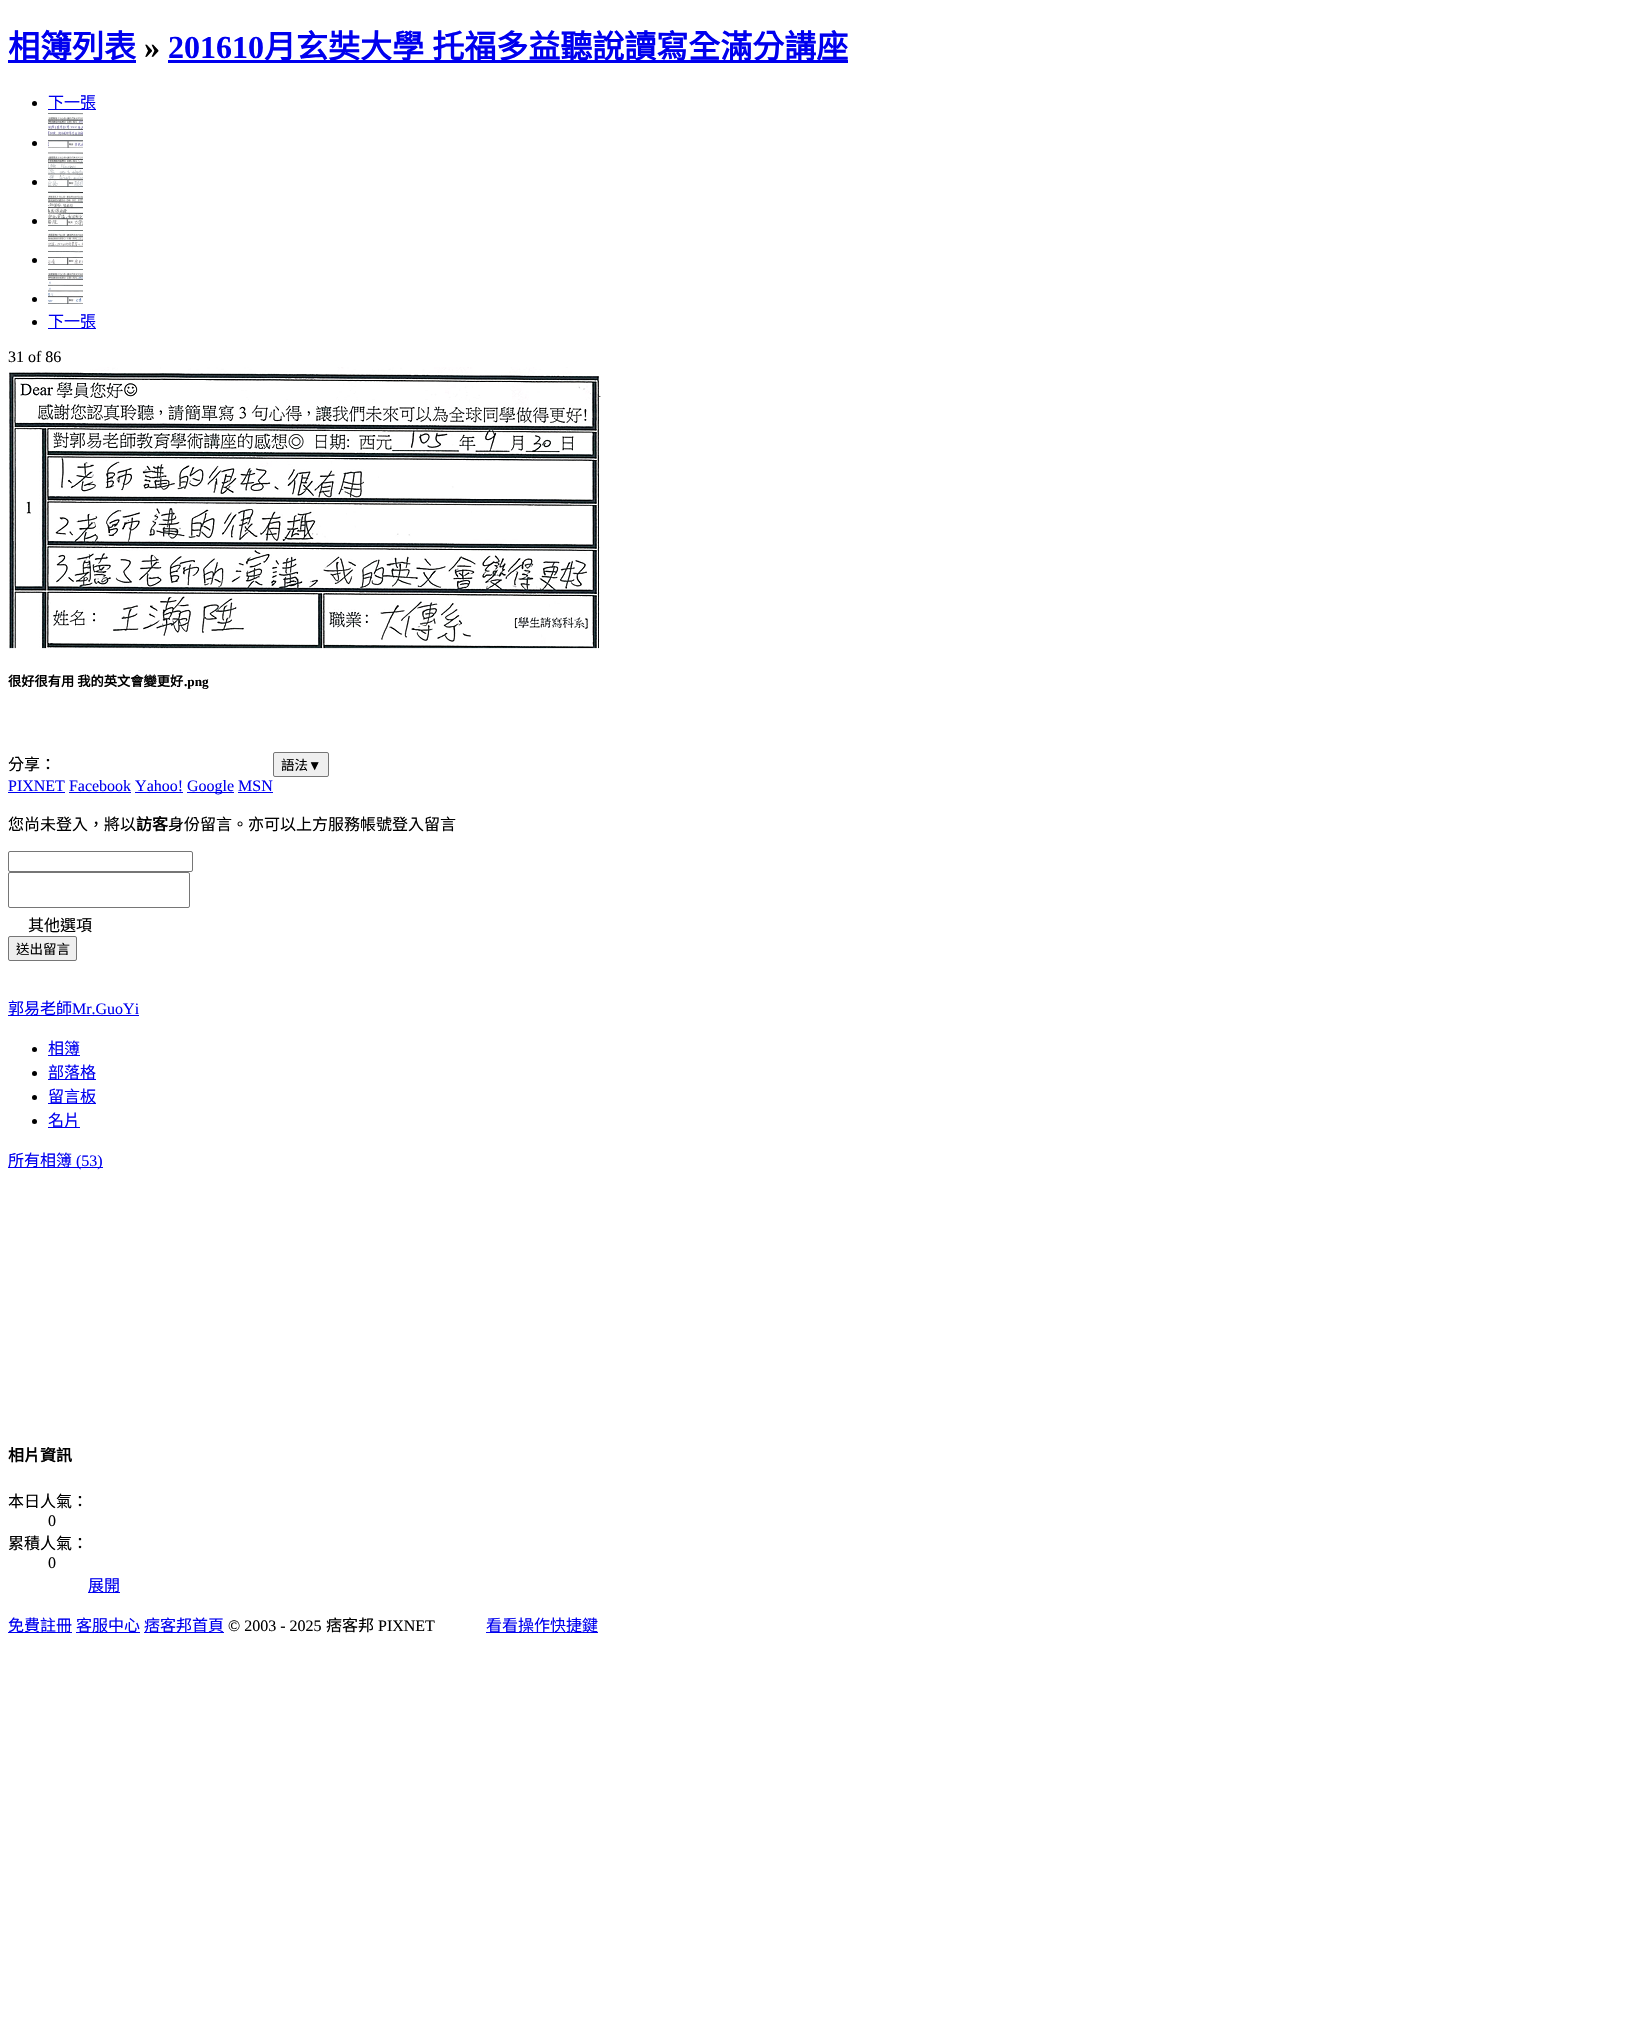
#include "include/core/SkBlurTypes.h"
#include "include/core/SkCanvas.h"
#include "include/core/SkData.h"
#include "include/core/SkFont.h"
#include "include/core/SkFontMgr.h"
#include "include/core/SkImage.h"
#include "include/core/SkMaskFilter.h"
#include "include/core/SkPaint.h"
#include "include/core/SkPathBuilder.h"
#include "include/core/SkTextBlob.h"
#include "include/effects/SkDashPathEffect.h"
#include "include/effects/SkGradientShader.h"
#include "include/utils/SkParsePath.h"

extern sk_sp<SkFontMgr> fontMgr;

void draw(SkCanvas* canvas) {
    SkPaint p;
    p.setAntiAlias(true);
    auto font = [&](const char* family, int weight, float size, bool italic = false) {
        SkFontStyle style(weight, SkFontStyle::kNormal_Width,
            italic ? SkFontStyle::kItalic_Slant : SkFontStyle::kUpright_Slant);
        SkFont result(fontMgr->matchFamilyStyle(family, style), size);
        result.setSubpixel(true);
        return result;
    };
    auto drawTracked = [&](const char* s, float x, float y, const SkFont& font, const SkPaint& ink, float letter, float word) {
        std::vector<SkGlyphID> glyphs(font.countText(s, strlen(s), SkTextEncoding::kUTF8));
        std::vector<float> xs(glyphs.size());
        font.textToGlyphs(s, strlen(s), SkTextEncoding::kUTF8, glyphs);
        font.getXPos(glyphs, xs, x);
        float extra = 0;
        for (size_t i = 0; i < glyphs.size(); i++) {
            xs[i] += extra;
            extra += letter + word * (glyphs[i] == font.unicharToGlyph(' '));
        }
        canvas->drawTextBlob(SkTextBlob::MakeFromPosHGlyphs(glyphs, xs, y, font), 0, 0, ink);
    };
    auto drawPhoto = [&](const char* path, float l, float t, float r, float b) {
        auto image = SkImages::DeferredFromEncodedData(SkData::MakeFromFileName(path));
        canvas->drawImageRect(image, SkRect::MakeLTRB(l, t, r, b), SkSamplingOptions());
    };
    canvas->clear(0xFFFFFFFF);
    p.setColor(0xFF0000EE);
    canvas->drawRect(SkRect::MakeLTRB(8, 60, 136, 63), p);
    auto font1 = font("Noto Sans CJK TC", 700, 32);
    canvas->drawString("相簿列表", 8, 58, font1, p);
    auto font2 = font("Liberation Serif", 700, 32);
    p.setColor(0xFF000000);
    canvas->drawString("»", 144, 58, font2, p);
    p.setColor(0xFF0000EE);
    canvas->drawString("201610", 168, 58, font2, p);
    canvas->drawRect(SkRect::MakeLTRB(168, 60, 848, 63), p);
    drawTracked("月玄奘大學 托福多益聽說讀寫全滿分講座", 264, 58, font1, p, 0, 1);
    p.setColor(0xFF000000);
    canvas->drawCircle(34.5f, 103.5f, 2.5f, p);
    p.setColor(0xFF0000EE);
    canvas->drawRect(SkRect::MakeLTRB(48, 109, 96, 110), p);
    auto font3 = font("Noto Sans CJK TC", 400, 16);
    canvas->drawString("下一張", 48, 108, font3, p);
    p.setColor(0xFF000000);
    canvas->drawCircle(34.5f, 143.5f, 2.5f, p);
    drawPhoto("media/1.png", 48, 113, 83, 148);
    canvas->drawCircle(34.5f, 182.5f, 2.5f, p);
    drawPhoto("media/2.png", 48, 152, 83, 187);
    canvas->drawCircle(34.5f, 221.5f, 2.5f, p);
    drawPhoto("media/3.png", 48, 191, 83, 226);
    canvas->drawCircle(34.5f, 260.5f, 2.5f, p);
    drawPhoto("media/4.png", 48, 230, 83, 265);
    canvas->drawCircle(34.5f, 299.5f, 2.5f, p);
    drawPhoto("media/5.png", 48, 269, 83, 304);
    canvas->drawCircle(34.5f, 322.5f, 2.5f, p);
    p.setColor(0xFF0000EE);
    canvas->drawRect(SkRect::MakeLTRB(48, 328, 96, 329), p);
    canvas->drawString("下一張", 48, 327, font3, p);
    auto font4 = font("Liberation Serif", 400, 16);
    p.setColor(0xFF000000);
    canvas->drawString("31 of 86", 8, 362, font4, p);
    drawPhoto("media/6.png", 9, 367, 601, 649);
    auto font5 = font("Noto Sans CJK TC", 700, 13.25f);
    canvas->drawString("很好很有用 我的英文會變更好", 8, 686, font5, p);
    auto font6 = font("Liberation Serif", 700, 13.25f);
    canvas->drawString(".png", 184, 686, font6, p);
    canvas->drawString("分享：", 8, 770, font3, p);
    p.setColor(0xFFEFEFEF);
    canvas->drawRoundRect(SkRect::MakeLTRB(273.5f, 752.5f, 328.5f, 776.5f), 1.5f, 1.5f, p);
    p.setStyle(SkPaint::kStroke_Style);
    p.setStrokeWidth(1);
    p.setColor(0xFF767676);
    canvas->drawRoundRect(SkRect::MakeLTRB(273.5f, 752.5f, 328.5f, 776.5f), 1.5f, 1.5f, p);
    auto font7 = font("Noto Sans CJK TC", 400, 13.5f);
    p.setStyle(SkPaint::kFill_Style);
    p.setColor(0xFF000000);
    canvas->drawString("語法", 281, 770, font7, p);
    auto font8 = font("Liberation Sans", 400, 13.5f);
    canvas->drawString("▼", 308, 770, font8, p);
    p.setColor(0xFF0000EE);
    canvas->drawString("PIXNET Facebook Yahoo!", 8, 791, font4, p);
    canvas->drawRect(SkRect::MakeLTRB(8, 792, 65, 793), p);
    canvas->drawRect(SkRect::MakeLTRB(187, 792, 234, 793), p);
    canvas->drawString("Google MSN", 187, 791, font4, p);
    {
        const struct { float l, t, r, b; SkColor color; } items[] = {
            {69, 792, 131, 793, 0xFF0000EE},
            {135, 792, 183, 793, 0xFF0000EE},
            {238, 792, 273, 793, 0xFF0000EE},
        };
        for (auto [l, t, r, b, color] : items) {
            p.setColor(color);
            canvas->drawRect(SkRect::MakeLTRB(l, t, r, b), p);
        }
    }
    p.setColor(0xFF000000);
    canvas->drawString("您尚未登入，將以", 8, 830, font3, p);
    auto font9 = font("Noto Sans CJK TC", 700, 16);
    canvas->drawString("訪客", 136, 830, font9, p);
    canvas->drawString("身份留言。亦可以上方服務帳號登入留言", 168, 830, font3, p);
    p.setStyle(SkPaint::kStroke_Style);
    p.setColor(0xFF767676);
    canvas->drawRoundRect(SkRect::MakeLTRB(8.5f, 851.5f, 192.5f, 871.5f), 1.5f, 1.5f, p);
    canvas->drawRoundRect(SkRect::MakeLTRB(8.5f, 872.5f, 189.5f, 907.5f), 1.5f, 1.5f, p);
    p.setStyle(SkPaint::kFill_Style);
    p.setColor(0xFF000000);
    canvas->drawString("其他選項", 28, 931, font3, p);
    p.setColor(0xFFEFEFEF);
    canvas->drawRoundRect(SkRect::MakeLTRB(8.5f, 936.5f, 76.5f, 960.5f), 1.5f, 1.5f, p);
    p.setStyle(SkPaint::kStroke_Style);
    p.setColor(0xFF767676);
    canvas->drawRoundRect(SkRect::MakeLTRB(8.5f, 936.5f, 76.5f, 960.5f), 1.5f, 1.5f, p);
    p.setStyle(SkPaint::kFill_Style);
    p.setColor(0xFF000000);
    canvas->drawString("送出留言", 16, 954, font7, p);
    p.setColor(0xFF0000EE);
    canvas->drawRect(SkRect::MakeLTRB(8, 1015, 139, 1016), p);
    canvas->drawString("郭易老師", 8, 1014, font3, p);
    canvas->drawString("Mr.GuoYi", 72, 1014, font4, p);
    p.setColor(0xFF000000);
    canvas->drawCircle(34.5f, 1049.5f, 2.5f, p);
    p.setColor(0xFF0000EE);
    canvas->drawRect(SkRect::MakeLTRB(48, 1055, 80, 1056), p);
    canvas->drawString("相簿", 48, 1054, font3, p);
    p.setColor(0xFF000000);
    canvas->drawCircle(34.5f, 1073.5f, 2.5f, p);
    p.setColor(0xFF0000EE);
    canvas->drawRect(SkRect::MakeLTRB(48, 1079, 96, 1080), p);
    canvas->drawString("部落格", 48, 1078, font3, p);
    p.setColor(0xFF000000);
    canvas->drawCircle(34.5f, 1097.5f, 2.5f, p);
    p.setColor(0xFF0000EE);
    canvas->drawRect(SkRect::MakeLTRB(48, 1103, 96, 1104), p);
    canvas->drawString("留言板", 48, 1102, font3, p);
    p.setColor(0xFF000000);
    canvas->drawCircle(34.5f, 1121.5f, 2.5f, p);
    p.setColor(0xFF0000EE);
    canvas->drawRect(SkRect::MakeLTRB(48, 1127, 80, 1128), p);
    canvas->drawString("名片", 48, 1126, font3, p);
    canvas->drawRect(SkRect::MakeLTRB(8, 1167, 103, 1168), p);
    canvas->drawString("所有相簿", 8, 1166, font3, p);
    canvas->drawString("(53)", 76, 1166, font4, p);
    p.setColor(0xFF000000);
    canvas->drawString("相片資訊", 8, 1461, font9, p);
    canvas->drawString("本日人氣：", 8, 1507, font3, p);
    canvas->drawString("0", 48, 1526, font4, p);
    canvas->drawString("累積人氣：", 8, 1549, font3, p);
    canvas->drawString("0", 48, 1568, font4, p);
    p.setColor(0xFF0000EE);
    canvas->drawRect(SkRect::MakeLTRB(88, 1592, 120, 1593), p);
    canvas->drawString("展開", 88, 1591, font3, p);
    canvas->drawRect(SkRect::MakeLTRB(8, 1632, 72, 1633), p);
    canvas->drawString("免費註冊", 8, 1631, font3, p);
    canvas->drawRect(SkRect::MakeLTRB(76, 1632, 140, 1633), p);
    canvas->drawString("客服中心", 76, 1631, font3, p);
    canvas->drawRect(SkRect::MakeLTRB(144, 1632, 224, 1633), p);
    canvas->drawString("痞客邦首頁", 144, 1631, font3, p);
    p.setColor(0xFF000000);
    canvas->drawString("© 2003 - 2025", 228, 1631, font4, p);
    canvas->drawString("痞客邦", 326, 1631, font3, p);
    canvas->drawString("PIXNET", 378, 1631, font4, p);
    p.setColor(0xFF0000EE);
    canvas->drawRect(SkRect::MakeLTRB(486, 1632, 598, 1633), p);
    canvas->drawString("看看操作快捷鍵", 486, 1631, font3, p);
}
